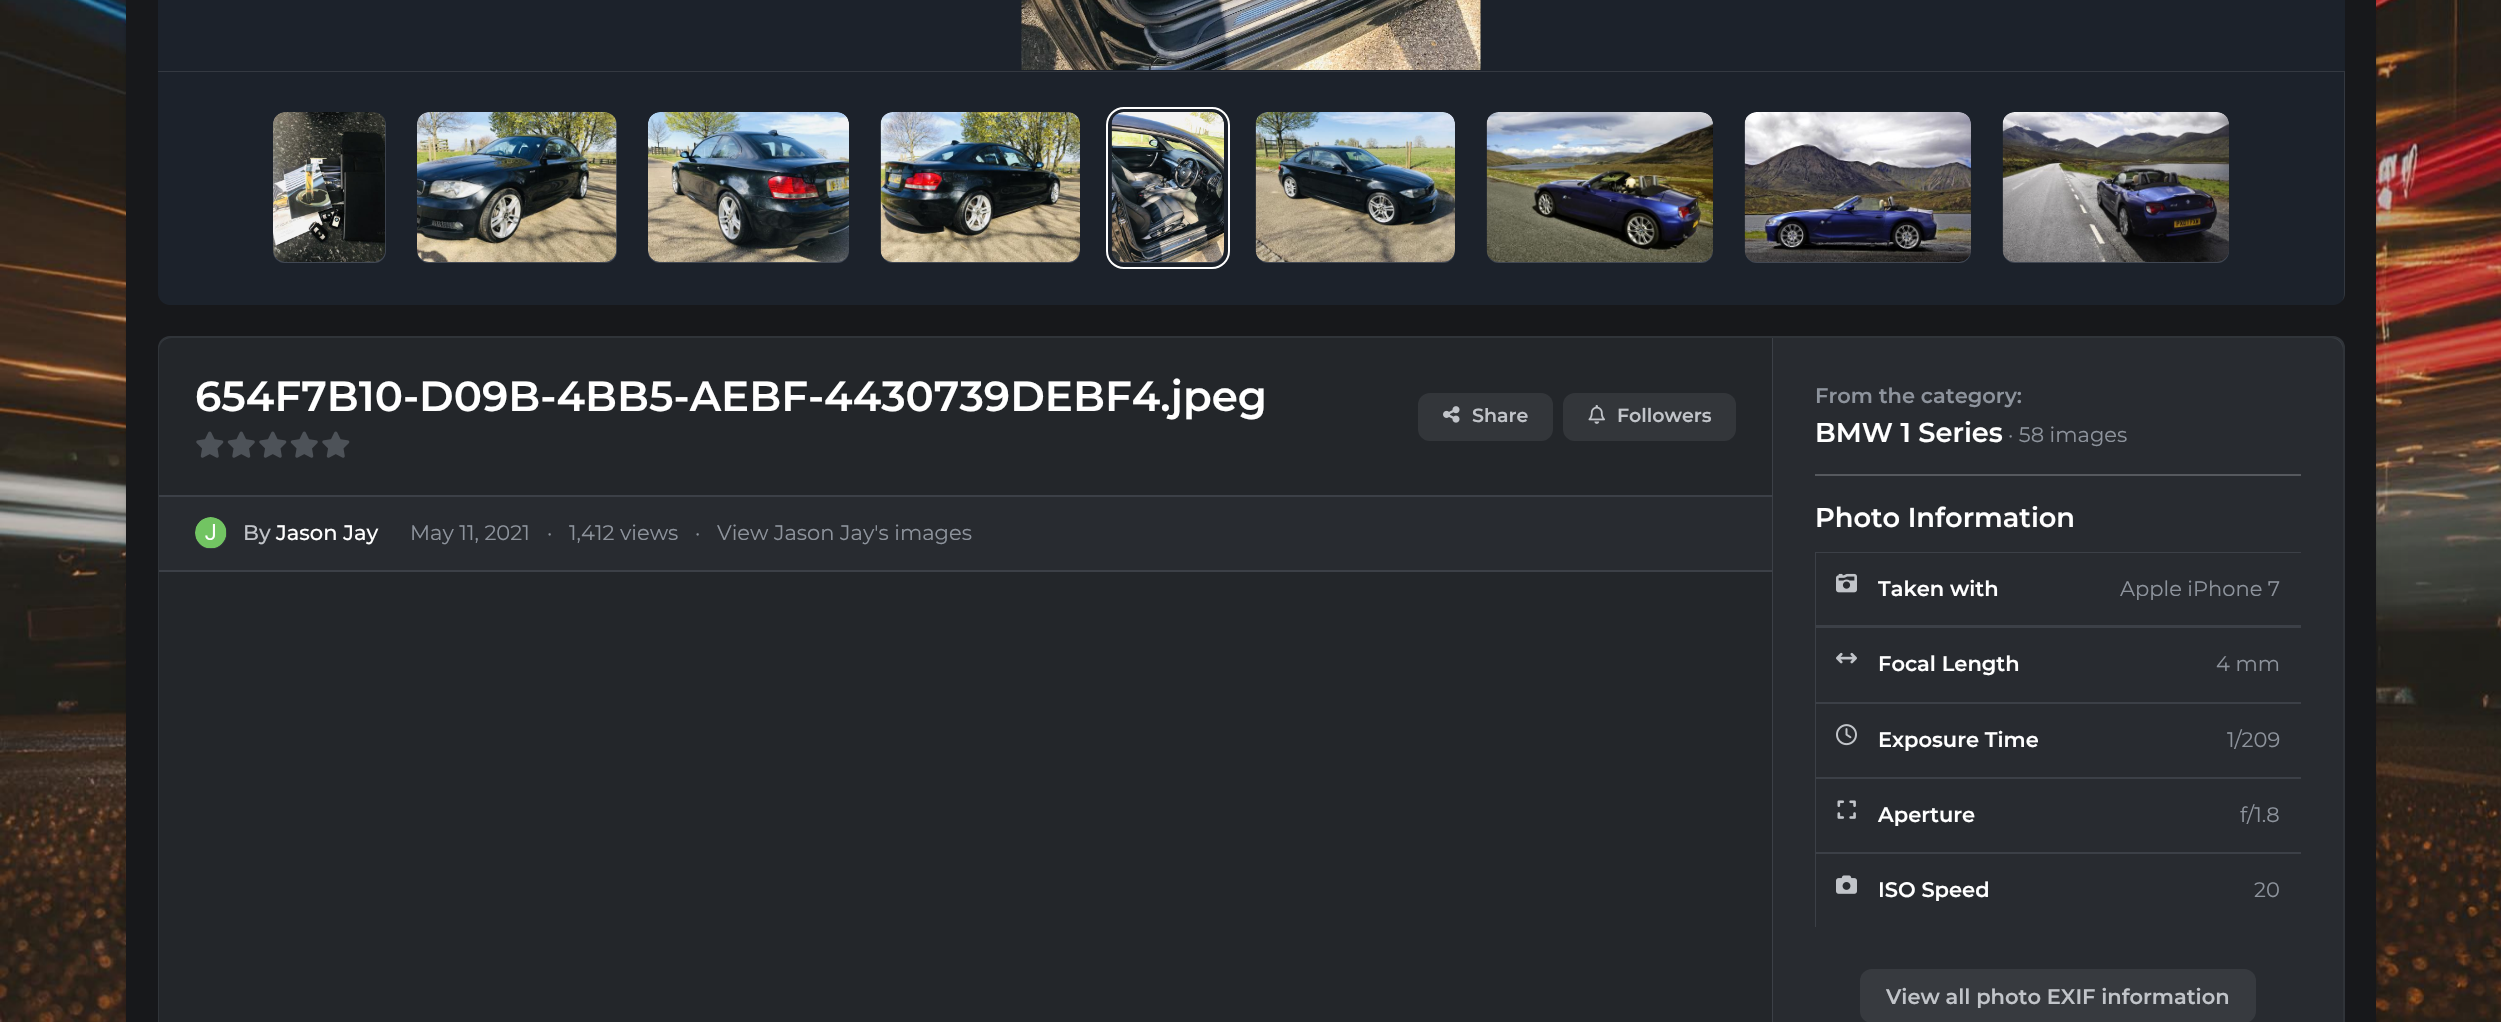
#include "include/core/SkBlurTypes.h"
#include "include/core/SkCanvas.h"
#include "include/core/SkData.h"
#include "include/core/SkFont.h"
#include "include/core/SkFontMgr.h"
#include "include/core/SkImage.h"
#include "include/core/SkMaskFilter.h"
#include "include/core/SkPaint.h"
#include "include/core/SkPathBuilder.h"
#include "include/core/SkTextBlob.h"
#include "include/effects/SkDashPathEffect.h"
#include "include/effects/SkGradientShader.h"
#include "include/utils/SkParsePath.h"

extern sk_sp<SkFontMgr> fontMgr;

void draw(SkCanvas* canvas) {
    SkPaint p;
    p.setAntiAlias(true);
    auto font = [&](const char* family, int weight, float size, bool italic = false) {
        SkFontStyle style(weight, SkFontStyle::kNormal_Width,
            italic ? SkFontStyle::kItalic_Slant : SkFontStyle::kUpright_Slant);
        SkFont result(fontMgr->matchFamilyStyle(family, style), size);
        result.setSubpixel(true);
        return result;
    };
    auto drawPhoto = [&](const char* path, float l, float t, float r, float b) {
        auto image = SkImages::DeferredFromEncodedData(SkData::MakeFromFileName(path));
        canvas->drawImageRect(image, SkRect::MakeLTRB(l, t, r, b), SkSamplingOptions());
    };
    canvas->clear(0xFFFFFFFF);
    drawPhoto("media/1.png", 0, 0, 2501, 1022);
    p.setColor(0x1A000000);
    p.setMaskFilter(SkMaskFilter::MakeBlur(kNormal_SkBlurStyle, 1.5f));
    canvas->drawRoundRect(SkRect::MakeLTRB(126, -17, 2376, 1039), 12, 12, p);
    p.setMaskFilter(nullptr);
    p.setMaskFilter(SkMaskFilter::MakeBlur(kNormal_SkBlurStyle, 15));
    canvas->drawRoundRect(SkRect::MakeLTRB(126, -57, 2376, 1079), 12, 12, p);
    p.setMaskFilter(nullptr);
    p.setColor(0xFF17181B);
    canvas->drawRect(SkRect::MakeLTRB(126, 0, 2376, 1022), p);
    p.setColor(0xFF1C222B);
    canvas->drawRect(SkRect::MakeLTRB(158, 0, 2345, 71), p);
    drawPhoto("media/2.png", 1021, 0, 1481, 70);
    canvas->drawPath(SkPathBuilder().moveTo(158, 71).lineTo(2345, 71).lineTo(2345, 293).cubicTo(2345, 299.5f, 2339.5f, 305, 2333, 305).lineTo(170, 305).cubicTo(163.5f, 305, 158, 299.5f, 158, 293).close().detach(), p);
    p.setColor(0x1AFFFFFF);
    canvas->drawPath(SkPathBuilder().moveTo(158, 72).lineTo(2344, 72).lineTo(2344, 294).cubicTo(2344, 297, 2343, 299, 2342, 301).cubicTo(2344, 299, 2345, 296, 2345, 293).lineTo(2345, 71).lineTo(158, 71).close().detach(), p);
    p.setColor(0xFF414854);
    canvas->drawRoundRect(SkRect::MakeLTRB(273, 113, 386, 263), 12, 12, p);
    drawPhoto("media/3.png", 273, 112, 386, 262);
    canvas->drawRoundRect(SkRect::MakeLTRB(417, 113, 617, 263), 12, 12, p);
    drawPhoto("media/4.png", 417, 112, 617, 262);
    canvas->drawRoundRect(SkRect::MakeLTRB(648, 113, 849, 263), 12, 12, p);
    drawPhoto("media/5.png", 648, 112, 849, 262);
    canvas->drawRoundRect(SkRect::MakeLTRB(881, 113, 1080, 263), 12, 12, p);
    drawPhoto("media/6.png", 880, 112, 1080, 262);
    canvas->drawRoundRect(SkRect::MakeLTRB(1112, 113, 1224, 263), 12, 12, p);
    p.setStyle(SkPaint::kStroke_Style);
    p.setStrokeWidth(2);
    p.setColor(0xFFFFFFFF);
    canvas->drawRoundRect(SkRect::MakeLTRB(1107, 108, 1229, 268), 17, 17, p);
    drawPhoto("media/7.png", 1111, 112, 1224, 262);
    p.setStyle(SkPaint::kFill_Style);
    p.setColor(0xFF414854);
    canvas->drawRoundRect(SkRect::MakeLTRB(1256, 113, 1455, 263), 12, 12, p);
    drawPhoto("media/8.png", 1255, 112, 1455, 262);
    canvas->drawRoundRect(SkRect::MakeLTRB(1487, 113, 1713, 263), 12, 12, p);
    drawPhoto("media/9.png", 1486, 112, 1713, 262);
    canvas->drawRoundRect(SkRect::MakeLTRB(1745, 113, 1971, 263), 12, 12, p);
    drawPhoto("media/10.png", 1744, 112, 1971, 262);
    canvas->drawRoundRect(SkRect::MakeLTRB(2003, 113, 2229, 263), 12, 12, p);
    drawPhoto("media/11.png", 2002, 112, 2229, 262);
    p.setColor(0xFF3C4047);
    canvas->drawRoundRect(SkRect::MakeLTRB(159, 337, 2344, 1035), 11, 11, p);
    p.setStyle(SkPaint::kStroke_Style);
    p.setColor(0xFF303439);
    canvas->drawRoundRect(SkRect::MakeLTRB(159, 337, 2344, 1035), 11, 11, p);
    p.setStyle(SkPaint::kFill_Style);
    p.setColor(0xFF23262A);
    canvas->drawPath(SkPathBuilder().moveTo(171, 338).lineTo(1772, 338).lineTo(1772, 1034).lineTo(171, 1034).cubicTo(164.5f, 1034, 159, 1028.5f, 159, 1022).lineTo(159, 350).cubicTo(159, 343.5f, 164.5f, 338, 171, 338).close().detach(), p);
    p.setColor(0xFF3C4047);
    canvas->drawRect(SkRect::MakeLTRB(159, 570, 1772, 572), p);
    auto font1 = font("Montserrat", 600, 42);
    p.setColor(0xFFFFFFFF);
    canvas->drawString("654F7B10-D09B-4BB5-AEBF-4430739DEBF4.jpeg", 195, 411, font1, p);
    drawPhoto("media/12.png", 196, 431, 224, 458);
    drawPhoto("media/13.png", 227, 431, 255, 458);
    drawPhoto("media/12.png", 259, 431, 287, 458);
    drawPhoto("media/13.png", 290, 431, 318, 458);
    drawPhoto("media/12.png", 322, 431, 350, 458);
    p.setColor(0xFF33363A);
    canvas->drawRoundRect(SkRect::MakeLTRB(1418, 393, 1553, 441), 12, 12, p);
    drawPhoto("media/14.png", 1443, 406, 1460, 423);
    auto font2 = font("Montserrat", 600, 19);
    p.setColor(0xFFC1C4C9);
    canvas->drawString("Share", 1472, 422, font2, p);
    p.setColor(0xFF33363A);
    canvas->drawRoundRect(SkRect::MakeLTRB(1563, 393, 1736, 441), 12, 12, p);
    drawPhoto("media/15.png", 1588, 405, 1605, 424);
    p.setColor(0xFFC1C4C9);
    canvas->drawString("Followers", 1617, 422, font2, p);
    p.setColor(0xFF282B30);
    canvas->drawRect(SkRect::MakeLTRB(159, 497, 1772, 570), p);
    p.setColor(0xFF3C4047);
    canvas->drawRect(SkRect::MakeLTRB(159, 495, 1772, 497), p);
    p.setColor(0xFF33363C);
    canvas->drawRoundRect(SkRect::MakeLTRB(195, 518, 227, 549), 15.5f, 15.5f, p);
    drawPhoto("media/16.png", 195, 517, 227, 549);
    auto font3 = font("Montserrat", 500, 21);
    p.setColor(0xFFC1C4C9);
    canvas->drawString("By", 243, 540, font3, p);
    p.setColor(0xFFFFFFFF);
    canvas->drawString("Jason Jay", 276, 540, font3, p);
    auto font4 = font("Montserrat", 400, 21);
    p.setColor(0xFF8D939C);
    {
        const struct { const char* s; float x, y; } items[] = {
            {"May 11, 2021", 410, 540},
            {"·", 547, 540},
            {"1,412 views", 569, 540},
            {"·", 695, 540},
            {"View Jason Jay's images", 717, 540},
        };
        for (auto [s, x, y] : items) {
            canvas->drawString(s, x, y, font4, p);
        }
    }
    p.setColor(0xFF282B30);
    canvas->drawPath(SkPathBuilder().moveTo(1773, 338).lineTo(2331, 338).cubicTo(2337.5f, 338, 2343, 343.5f, 2343, 350).lineTo(2343, 1022).cubicTo(2343, 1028.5f, 2337.5f, 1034, 2331, 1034).lineTo(1773, 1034).close().detach(), p);
    auto font5 = font("Montserrat", 600, 21);
    p.setColor(0xFF8D939C);
    canvas->drawString("From the category:", 1815, 403, font5, p);
    auto font6 = font("Montserrat", 600, 27.25f);
    p.setColor(0xFFFFFFFF);
    canvas->drawString("BMW 1 Series", 1815, 442, font6, p);
    p.setColor(0xFF8D939C);
    canvas->drawString("· 58 images", 2008, 442, font4, p);
    p.setColor(0xFF56595E);
    canvas->drawRect(SkRect::MakeLTRB(1815, 474, 2301, 476), p);
    p.setColor(0xFFFFFFFF);
    canvas->drawString("Photo Information", 1815, 527, font6, p);
    drawPhoto("media/17.png", 1836, 573, 1857, 593);
    canvas->save();
    canvas->clipRect(SkRect::MakeLTRB(1815, 552, 2301, 927));
    p.setStyle(SkPaint::kStroke_Style);
    p.setColor(0xFF3C4047);
    canvas->drawRect(SkRect::MakeLTRB(1815, 552, 2302, 626), p);
    canvas->restore();
    p.setStyle(SkPaint::kFill_Style);
    p.setColor(0xFFFFFFFF);
    canvas->drawString("Taken with", 1878, 596, font5, p);
    p.setColor(0xFF8D939C);
    canvas->drawString("Apple iPhone 7", 2120, 596, font4, p);
    drawPhoto("media/18.png", 1836, 652, 1857, 664);
    canvas->save();
    canvas->clipRect(SkRect::MakeLTRB(1815, 552, 2301, 927));
    p.setStyle(SkPaint::kStroke_Style);
    p.setColor(0xFF3C4047);
    canvas->drawRect(SkRect::MakeLTRB(1815, 627, 2302, 703), p);
    canvas->restore();
    p.setStyle(SkPaint::kFill_Style);
    p.setColor(0xFFFFFFFF);
    canvas->drawString("Focal Length", 1878, 671, font5, p);
    p.setColor(0xFF8D939C);
    canvas->drawString("4 mm", 2216, 671, font4, p);
    drawPhoto("media/19.png", 1836, 724, 1857, 746);
    canvas->save();
    canvas->clipRect(SkRect::MakeLTRB(1815, 552, 2301, 927));
    p.setStyle(SkPaint::kStroke_Style);
    p.setColor(0xFF3C4047);
    canvas->drawRect(SkRect::MakeLTRB(1815, 703, 2302, 778), p);
    canvas->restore();
    p.setStyle(SkPaint::kFill_Style);
    p.setColor(0xFFFFFFFF);
    canvas->drawString("Exposure Time", 1878, 747, font5, p);
    p.setColor(0xFF8D939C);
    canvas->drawString("1/209", 2227, 747, font4, p);
    drawPhoto("media/20.png", 1837, 800, 1856, 819);
    canvas->save();
    canvas->clipRect(SkRect::MakeLTRB(1815, 552, 2301, 927));
    p.setStyle(SkPaint::kStroke_Style);
    p.setColor(0xFF3C4047);
    canvas->drawRect(SkRect::MakeLTRB(1815, 778, 2302, 853), p);
    canvas->restore();
    p.setStyle(SkPaint::kFill_Style);
    p.setColor(0xFFFFFFFF);
    canvas->drawString("Aperture", 1878, 822, font5, p);
    p.setColor(0xFF8D939C);
    canvas->drawString("f/1.8", 2240, 822, font4, p);
    drawPhoto("media/21.png", 1836, 875, 1857, 894);
    canvas->save();
    canvas->clipRect(SkRect::MakeLTRB(1815, 552, 2301, 927));
    p.setStyle(SkPaint::kStroke_Style);
    p.setColor(0xFF3C4047);
    canvas->drawRect(SkRect::MakeLTRB(1815, 853, 2302, 928), p);
    canvas->restore();
    p.setStyle(SkPaint::kFill_Style);
    p.setColor(0xFFFFFFFF);
    canvas->drawString("ISO Speed", 1878, 897, font5, p);
    p.setColor(0xFF8D939C);
    canvas->drawString("20", 2254, 897, font4, p);
    p.setColor(0xFF373A3F);
    canvas->drawRoundRect(SkRect::MakeLTRB(1860, 969, 2256, 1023), 12, 12, p);
    p.setColor(0xFFC1C4C9);
    canvas->drawString("View all photo EXIF information", 1886, 1004, font5, p);
}
